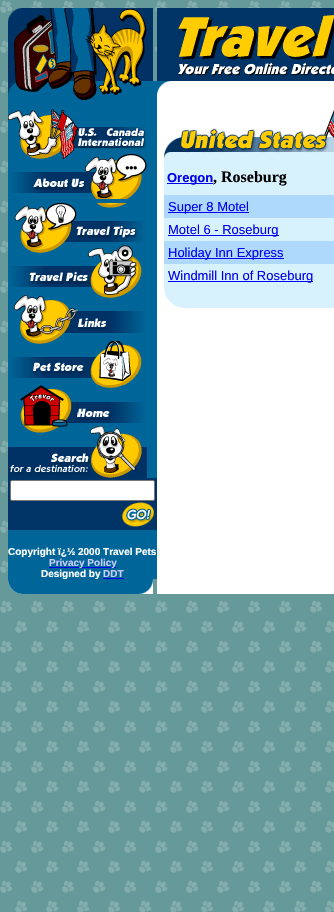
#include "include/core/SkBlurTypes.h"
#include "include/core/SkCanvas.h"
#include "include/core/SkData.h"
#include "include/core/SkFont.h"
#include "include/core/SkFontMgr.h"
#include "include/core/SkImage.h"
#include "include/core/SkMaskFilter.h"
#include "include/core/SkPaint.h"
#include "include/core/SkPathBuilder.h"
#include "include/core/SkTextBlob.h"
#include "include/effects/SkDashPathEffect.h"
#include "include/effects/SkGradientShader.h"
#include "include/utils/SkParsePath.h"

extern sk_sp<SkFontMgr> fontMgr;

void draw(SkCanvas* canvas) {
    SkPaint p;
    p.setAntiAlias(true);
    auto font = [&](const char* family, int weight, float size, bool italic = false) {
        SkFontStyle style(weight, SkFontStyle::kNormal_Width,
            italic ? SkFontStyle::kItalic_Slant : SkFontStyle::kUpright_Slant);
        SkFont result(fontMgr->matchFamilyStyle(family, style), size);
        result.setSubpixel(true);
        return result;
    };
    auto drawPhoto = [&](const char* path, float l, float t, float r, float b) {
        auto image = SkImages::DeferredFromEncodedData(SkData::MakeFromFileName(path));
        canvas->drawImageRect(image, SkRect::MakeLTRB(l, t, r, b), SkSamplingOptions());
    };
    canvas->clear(0xFFFFFFFF);
    drawPhoto("media/1.png", 0, 0, 334, 912);
    drawPhoto("media/2.png", 8, 8, 81, 81);
    drawPhoto("media/3.png", 81, 8, 121, 81);
    drawPhoto("media/4.png", 121, 8, 153, 81);
    p.setColor(0xFF003366);
    canvas->drawRect(SkRect::MakeLTRB(157, 8, 334, 81), p);
    drawPhoto("media/5.png", 178, 15, 334, 76);
    p.setColor(0xFF006699);
    canvas->drawRect(SkRect::MakeLTRB(8, 81, 157, 579), p);
    drawPhoto("media/6.png", 8, 81, 142, 100);
    p.setColor(0xFFFFFFFF);
    canvas->drawRect(SkRect::MakeLTRB(157, 81, 334, 594), p);
    drawPhoto("media/7.png", 157, 81, 171, 94);
    drawPhoto("media/8.png", 8, 109, 78, 159);
    drawPhoto("media/9.png", 78, 127, 147, 159);
    drawPhoto("media/10.png", 11, 159, 84, 193);
    drawPhoto("media/11.png", 84, 159, 147, 199);
    drawPhoto("media/12.png", 14, 203, 78, 242);
    drawPhoto("media/13.png", 78, 203, 143, 242);
    drawPhoto("media/14.png", 10, 242, 84, 287);
    drawPhoto("media/15.png", 84, 245, 142, 294);
    drawPhoto("media/16.png", 14, 295, 78, 340);
    drawPhoto("media/17.png", 78, 294, 144, 333);
    drawPhoto("media/18.png", 11, 340, 84, 378);
    drawPhoto("media/19.png", 84, 340, 142, 385);
    drawPhoto("media/20.png", 20, 385, 78, 433);
    drawPhoto("media/21.png", 78, 385, 145, 434);
    drawPhoto("media/22.png", 8, 434, 147, 478);
    p.setColor(0xFF003366);
    canvas->drawRect(SkRect::MakeLTRB(8, 478, 157, 530), p);
    p.setColor(0xFFFFFFFF);
    canvas->drawRoundRect(SkRect::MakeLTRB(10.5f, 480.5f, 154.5f, 500.5f), 1.5f, 1.5f, p);
    p.setStyle(SkPaint::kStroke_Style);
    p.setStrokeWidth(1);
    p.setColor(0xFF767676);
    canvas->drawRoundRect(SkRect::MakeLTRB(10.5f, 480.5f, 154.5f, 500.5f), 1.5f, 1.5f, p);
    drawPhoto("media/23.png", 121, 502, 155, 527);
    drawPhoto("media/24.png", 164, 110, 334, 158);
    p.setStyle(SkPaint::kFill_Style);
    p.setColor(0xFFD7F1FD);
    canvas->drawRect(SkRect::MakeLTRB(164, 158, 334, 195), p);
    p.setColor(0xFF0000EE);
    canvas->drawRect(SkRect::MakeLTRB(167, 183, 213, 184), p);
    auto font1 = font("Liberation Sans", 700, 13);
    canvas->drawString("Oregon", 167, 182, font1, p);
    auto font2 = font("Liberation Serif", 700, 16);
    p.setColor(0xFF000000);
    canvas->drawString(", Roseburg", 213, 182, font2, p);
    {
        const struct { float l, t, r, b; SkColor color; } items[] = {
            {164, 218, 334, 287, 0xFFD7F1FD},
            {164, 195, 334, 218, 0xFFAED8FC},
            {168, 212, 249, 213, 0xFF0000EE},
        };
        for (auto [l, t, r, b, color] : items) {
            p.setColor(color);
            canvas->drawRect(SkRect::MakeLTRB(l, t, r, b), p);
        }
    }
    auto font3 = font("Liberation Sans", 400, 13);
    canvas->drawString("Super 8 Motel", 168, 211, font3, p);
    canvas->drawRect(SkRect::MakeLTRB(168, 235, 279, 236), p);
    canvas->drawString("Motel 6 - Roseburg", 168, 234, font3, p);
    p.setColor(0xFFAED8FC);
    canvas->drawRect(SkRect::MakeLTRB(164, 241, 334, 264), p);
    p.setColor(0xFF0000EE);
    canvas->drawRect(SkRect::MakeLTRB(168, 258, 284, 259), p);
    canvas->drawString("Holiday Inn Express", 168, 257, font3, p);
    canvas->drawRect(SkRect::MakeLTRB(168, 281, 313, 282), p);
    canvas->drawString("Windmill Inn of Roseburg", 168, 280, font3, p);
    drawPhoto("media/25.png", 164, 287, 185, 308);
    p.setColor(0xFFD7F1FD);
    canvas->drawRect(SkRect::MakeLTRB(185, 287, 334, 308), p);
    auto font4 = font("Liberation Sans", 700, 10);
    p.setColor(0xFFFFFFFF);
    canvas->drawString("Copyright ï¿½ 2000 Travel Pets", 8, 555, font4, p);
    p.setColor(0xFF0000EE);
    canvas->drawRect(SkRect::MakeLTRB(49, 567, 116, 568), p);
    p.setColor(0xFFCCCCFF);
    canvas->drawString("Privacy Policy", 49, 566, font4, p);
    p.setColor(0xFFFFFFFF);
    canvas->drawString("Designed by", 41, 577, font4, p);
    p.setColor(0xFF0000EE);
    canvas->drawRect(SkRect::MakeLTRB(103, 578, 124, 579), p);
    p.setColor(0xFFCCCCFF);
    canvas->drawString("DDT", 103, 577, font4, p);
    drawPhoto("media/26.png", 8, 579, 153, 594);
}
